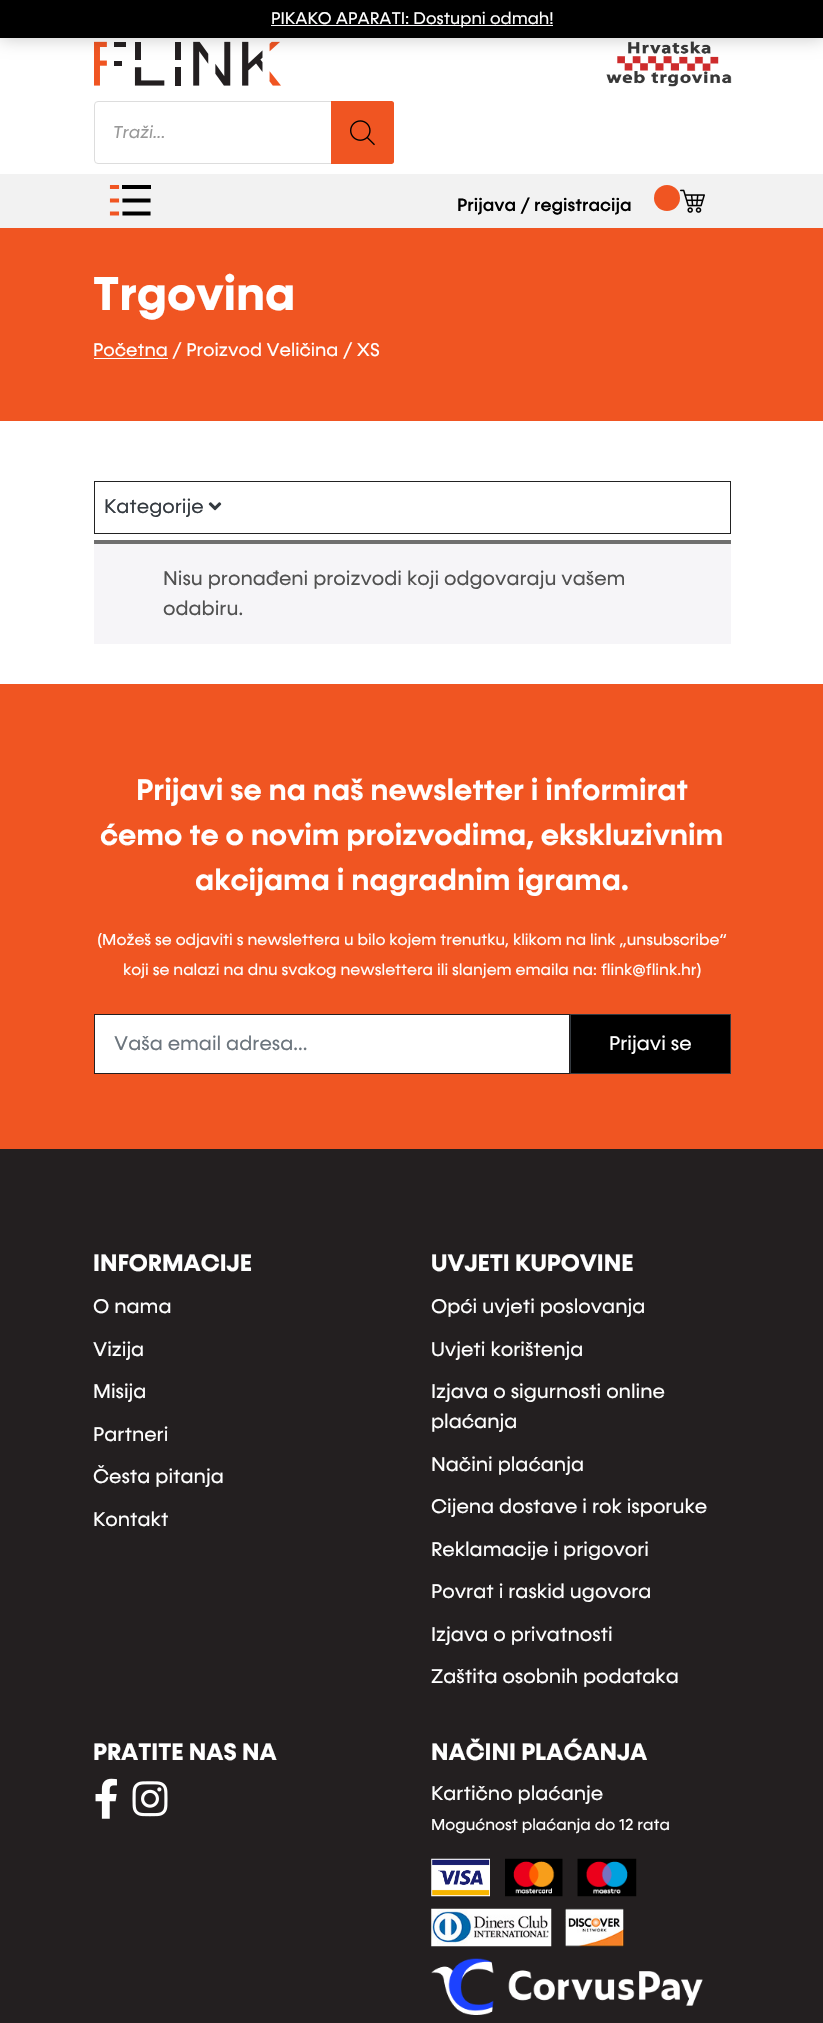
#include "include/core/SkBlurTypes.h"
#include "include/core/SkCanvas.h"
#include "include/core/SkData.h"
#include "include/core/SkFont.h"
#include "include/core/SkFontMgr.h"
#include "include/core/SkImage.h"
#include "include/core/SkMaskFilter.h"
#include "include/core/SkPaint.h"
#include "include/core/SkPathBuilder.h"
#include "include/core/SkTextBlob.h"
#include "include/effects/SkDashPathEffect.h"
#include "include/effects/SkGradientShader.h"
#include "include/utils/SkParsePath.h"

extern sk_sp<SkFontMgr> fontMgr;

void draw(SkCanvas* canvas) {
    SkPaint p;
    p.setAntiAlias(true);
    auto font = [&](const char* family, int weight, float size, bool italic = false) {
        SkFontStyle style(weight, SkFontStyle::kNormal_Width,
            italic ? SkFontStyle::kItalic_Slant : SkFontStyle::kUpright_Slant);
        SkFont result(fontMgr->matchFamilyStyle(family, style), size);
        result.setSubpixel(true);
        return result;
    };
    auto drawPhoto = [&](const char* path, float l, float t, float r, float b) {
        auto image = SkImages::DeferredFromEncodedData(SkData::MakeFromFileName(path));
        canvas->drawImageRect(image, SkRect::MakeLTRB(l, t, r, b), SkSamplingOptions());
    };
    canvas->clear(0xFFFFFFFF);
    drawPhoto("media/1.png", 94, 41, 281, 86);
    drawPhoto("media/2.png", 606, 41, 732, 87);
    p.setColor(0x33000000);
    p.setMaskFilter(SkMaskFilter::MakeBlur(kNormal_SkBlurStyle, 8.5f));
    canvas->drawRect(SkRect::MakeLTRB(0, 1, 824, 39), p);
    p.setMaskFilter(nullptr);
    p.setColor(0xFF000000);
    canvas->drawRect(SkRect::MakeLTRB(0, 0, 823, 38), p);
    p.setColor(0xFFFCFBFE);
    canvas->drawRect(SkRect::MakeLTRB(271, 25, 553, 26), p);
    auto font1 = font("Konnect", 400, 17);
    p.setColor(0xFFFFFFFF);
    canvas->drawString("PIKAKO APARATI: Dostupni odmah!", 271, 24, font1, p);
    p.setStyle(SkPaint::kStroke_Style);
    p.setStrokeWidth(1);
    p.setColor(0xFFDDDDDD);
    canvas->drawRoundRect(SkRect::MakeLTRB(94.5f, 101.5f, 393.5f, 163.5f), 3.5f, 3.5f, p);
    auto font2 = font("Konnect", 400, 17.5f, true);
    p.setStyle(SkPaint::kFill_Style);
    p.setColor(0xFF999999);
    canvas->drawString("Traži...", 113, 138, font2, p);
    p.setColor(0xFFF05522);
    canvas->drawPath(SkPathBuilder().moveTo(331, 101).lineTo(391.5f, 101).cubicTo(393, 101, 394, 102, 394, 103.5f).lineTo(394, 161.5f).cubicTo(394, 163, 393, 164, 391.5f, 164).lineTo(331, 164).close().detach(), p);
    drawPhoto("media/3.png", 350, 120, 375, 146);
    p.setColor(0xFFF2F2F2);
    canvas->drawRect(SkRect::MakeLTRB(0, 174, 823, 228), p);
    p.setStyle(SkPaint::kStroke_Style);
    p.setStrokeWidth(4.1f);
    p.setStrokeCap(SkPaint::kSquare_Cap);
    p.setColor(0xFFF05522);
    canvas->drawPath(SkPathBuilder().moveTo(117, 213.5f).lineTo(112, 213.5f).moveTo(117, 200.5f).lineTo(112, 200.5f).moveTo(117, 187).lineTo(112, 187).detach(), p);
    p.setStyle(SkPaint::kFill_Style);
    p.setColor(0xFF000000);
    canvas->drawRect(SkRect::MakeLTRB(122, 185, 151, 189), p);
    p.setStyle(SkPaint::kStroke_Style);
    canvas->drawPath(SkPathBuilder().moveTo(148.5f, 213.5f).lineTo(124.5f, 213.5f).moveTo(148.5f, 200.5f).lineTo(124.5f, 200.5f).detach(), p);
    auto font3 = font("Konnect", 500, 18);
    p.setStyle(SkPaint::kFill_Style);
    canvas->drawString("Prijava / registracija", 457, 211, font3, p);
    p.setColor(0xFFF05522);
    canvas->drawCircle(667, 198, 13, p);
    drawPhoto("media/4.png", 680, 189, 705, 213);
    canvas->drawRect(SkRect::MakeLTRB(0, 228, 823, 421), p);
    auto font4 = font("Konnect", 700, 48);
    p.setColor(0xFFFFFFFF);
    canvas->drawString("Trgovina", 93, 310, font4, p);
    canvas->drawRect(SkRect::MakeLTRB(94, 358, 168, 359), p);
    auto font5 = font("Konnect", 400, 18.4f);
    canvas->drawString("Početna / Proizvod Veličina / XS", 93, 356, font5, p);
    p.setStyle(SkPaint::kStroke_Style);
    p.setStrokeWidth(1);
    p.setStrokeCap(SkPaint::kButt_Cap);
    p.setColor(0xFF222222);
    canvas->drawRect(SkRect::MakeLTRB(94.5f, 481.5f, 730.5f, 533.5f), p);
    auto font6 = font("Konnect", 400, 20);
    p.setStyle(SkPaint::kFill_Style);
    p.setColor(0xFF343A40);
    canvas->drawString("Kategorije", 104, 513, font6, p);
    drawPhoto("media/5.png", 208, 502, 222, 511);
    p.setColor(0xFFF6F5F8);
    canvas->drawRect(SkRect::MakeLTRB(94, 544, 731, 644), p);
    p.setColor(0xFF6F6F6F);
    canvas->drawRect(SkRect::MakeLTRB(94, 540, 731, 544), p);
    p.setColor(0xFF515151);
    canvas->drawString("Nisu pronađeni proizvodi koji odgovaraju vašem", 163, 585, font6, p);
    canvas->drawString("odabiru.", 163, 615, font6, p);
    p.setColor(0xFFF05522);
    canvas->drawRect(SkRect::MakeLTRB(0, 684, 823, 1149), p);
    auto font7 = font("Konnect", 600, 30);
    p.setColor(0xFFFFFFFF);
    {
        const struct { const char* s; float x, y; } items[] = {
            {"Prijavi se na naš newsletter i informirat", 136, 800},
            {"ćemo te o novim proizvodima, ekskluzivnim", 100, 845},
            {"akcijama i nagradnim igrama.", 195, 890},
        };
        for (auto [s, x, y] : items) {
            canvas->drawString(s, x, y, font7, p);
        }
    }
    auto font8 = font("Konnect", 400, 16);
    canvas->drawString("(Možeš se odjaviti s newslettera u bilo kojem trenutku, klikom na link „unsubscribe“", 97, 945, font8, p);
    canvas->drawString("koji se nalazi na dnu svakog newslettera ili slanjem emaila na: flink@flink.hr)", 123, 975, font8, p);
    canvas->drawRect(SkRect::MakeLTRB(94.5f, 1014.5f, 569.5f, 1073.5f), p);
    p.setStyle(SkPaint::kStroke_Style);
    p.setColor(0xFF231F20);
    canvas->drawRect(SkRect::MakeLTRB(94.5f, 1014.5f, 569.5f, 1073.5f), p);
    p.setStyle(SkPaint::kFill_Style);
    p.setColor(0xFF6C757D);
    canvas->drawString("Vaša email adresa...", 114, 1050, font6, p);
    p.setColor(0xFF000000);
    canvas->drawRect(SkRect::MakeLTRB(570.5f, 1014.5f, 730.5f, 1073.5f), p);
    p.setStyle(SkPaint::kStroke_Style);
    p.setColor(0xFF343A40);
    canvas->drawRect(SkRect::MakeLTRB(570.5f, 1014.5f, 730.5f, 1073.5f), p);
    p.setStyle(SkPaint::kFill_Style);
    p.setColor(0xFFFFFFFF);
    canvas->drawString("Prijavi se", 609, 1050, font6, p);
    p.setColor(0xFF231F20);
    canvas->drawRect(SkRect::MakeLTRB(0, 1149, 823, 2023), p);
    auto font9 = font("Konnect", 700, 24);
    p.setColor(0xFFFFFFFF);
    canvas->drawString("INFORMACIJE", 93, 1271, font9, p);
    {
        const struct { const char* s; float x, y; } items[] = {
            {"O nama", 93, 1313},
            {"Vizija", 93, 1356},
            {"Misija", 93, 1398},
            {"Partneri", 93, 1441},
            {"Česta pitanja", 93, 1483},
            {"Kontakt", 93, 1526},
        };
        for (auto [s, x, y] : items) {
            canvas->drawString(s, x, y, font6, p);
        }
    }
    canvas->drawString("UVJETI KUPOVINE", 431, 1271, font9, p);
    {
        const struct { const char* s; float x, y; } items[] = {
            {"Opći uvjeti poslovanja", 431, 1313},
            {"Uvjeti korištenja", 431, 1356},
            {"Izjava o sigurnosti online", 431, 1398},
            {"plaćanja", 431, 1428},
            {"Načini plaćanja", 431, 1471},
            {"Cijena dostave i rok isporuke", 431, 1513},
            {"Reklamacije i prigovori", 431, 1556},
            {"Povrat i raskid ugovora", 431, 1598},
            {"Izjava o privatnosti", 431, 1641},
            {"Zaštita osobnih podataka", 431, 1683},
        };
        for (auto [s, x, y] : items) {
            canvas->drawString(s, x, y, font6, p);
        }
    }
    canvas->drawString("PRATITE NAS NA", 93, 1760, font9, p);
    drawPhoto("media/6.png", 95, 1778, 117, 1819);
    drawPhoto("media/7.png", 132, 1781, 168, 1817);
    canvas->drawString("NAČINI PLAĆANJA", 431, 1760, font9, p);
    canvas->drawString("Kartično plaćanje", 431, 1800, font6, p);
    canvas->drawString("Mogućnost plaćanja do 12 rata", 431, 1830, font8, p);
    drawPhoto("media/8.png", 431, 1858, 490, 1897);
    drawPhoto("media/9.png", 505, 1858, 563, 1897);
    drawPhoto("media/10.png", 577, 1858, 637, 1897);
    drawPhoto("media/11.png", 431, 1908, 552, 1947);
    drawPhoto("media/12.png", 565, 1908, 624, 1947);
    drawPhoto("media/13.png", 431, 1958, 703, 2015);
}
